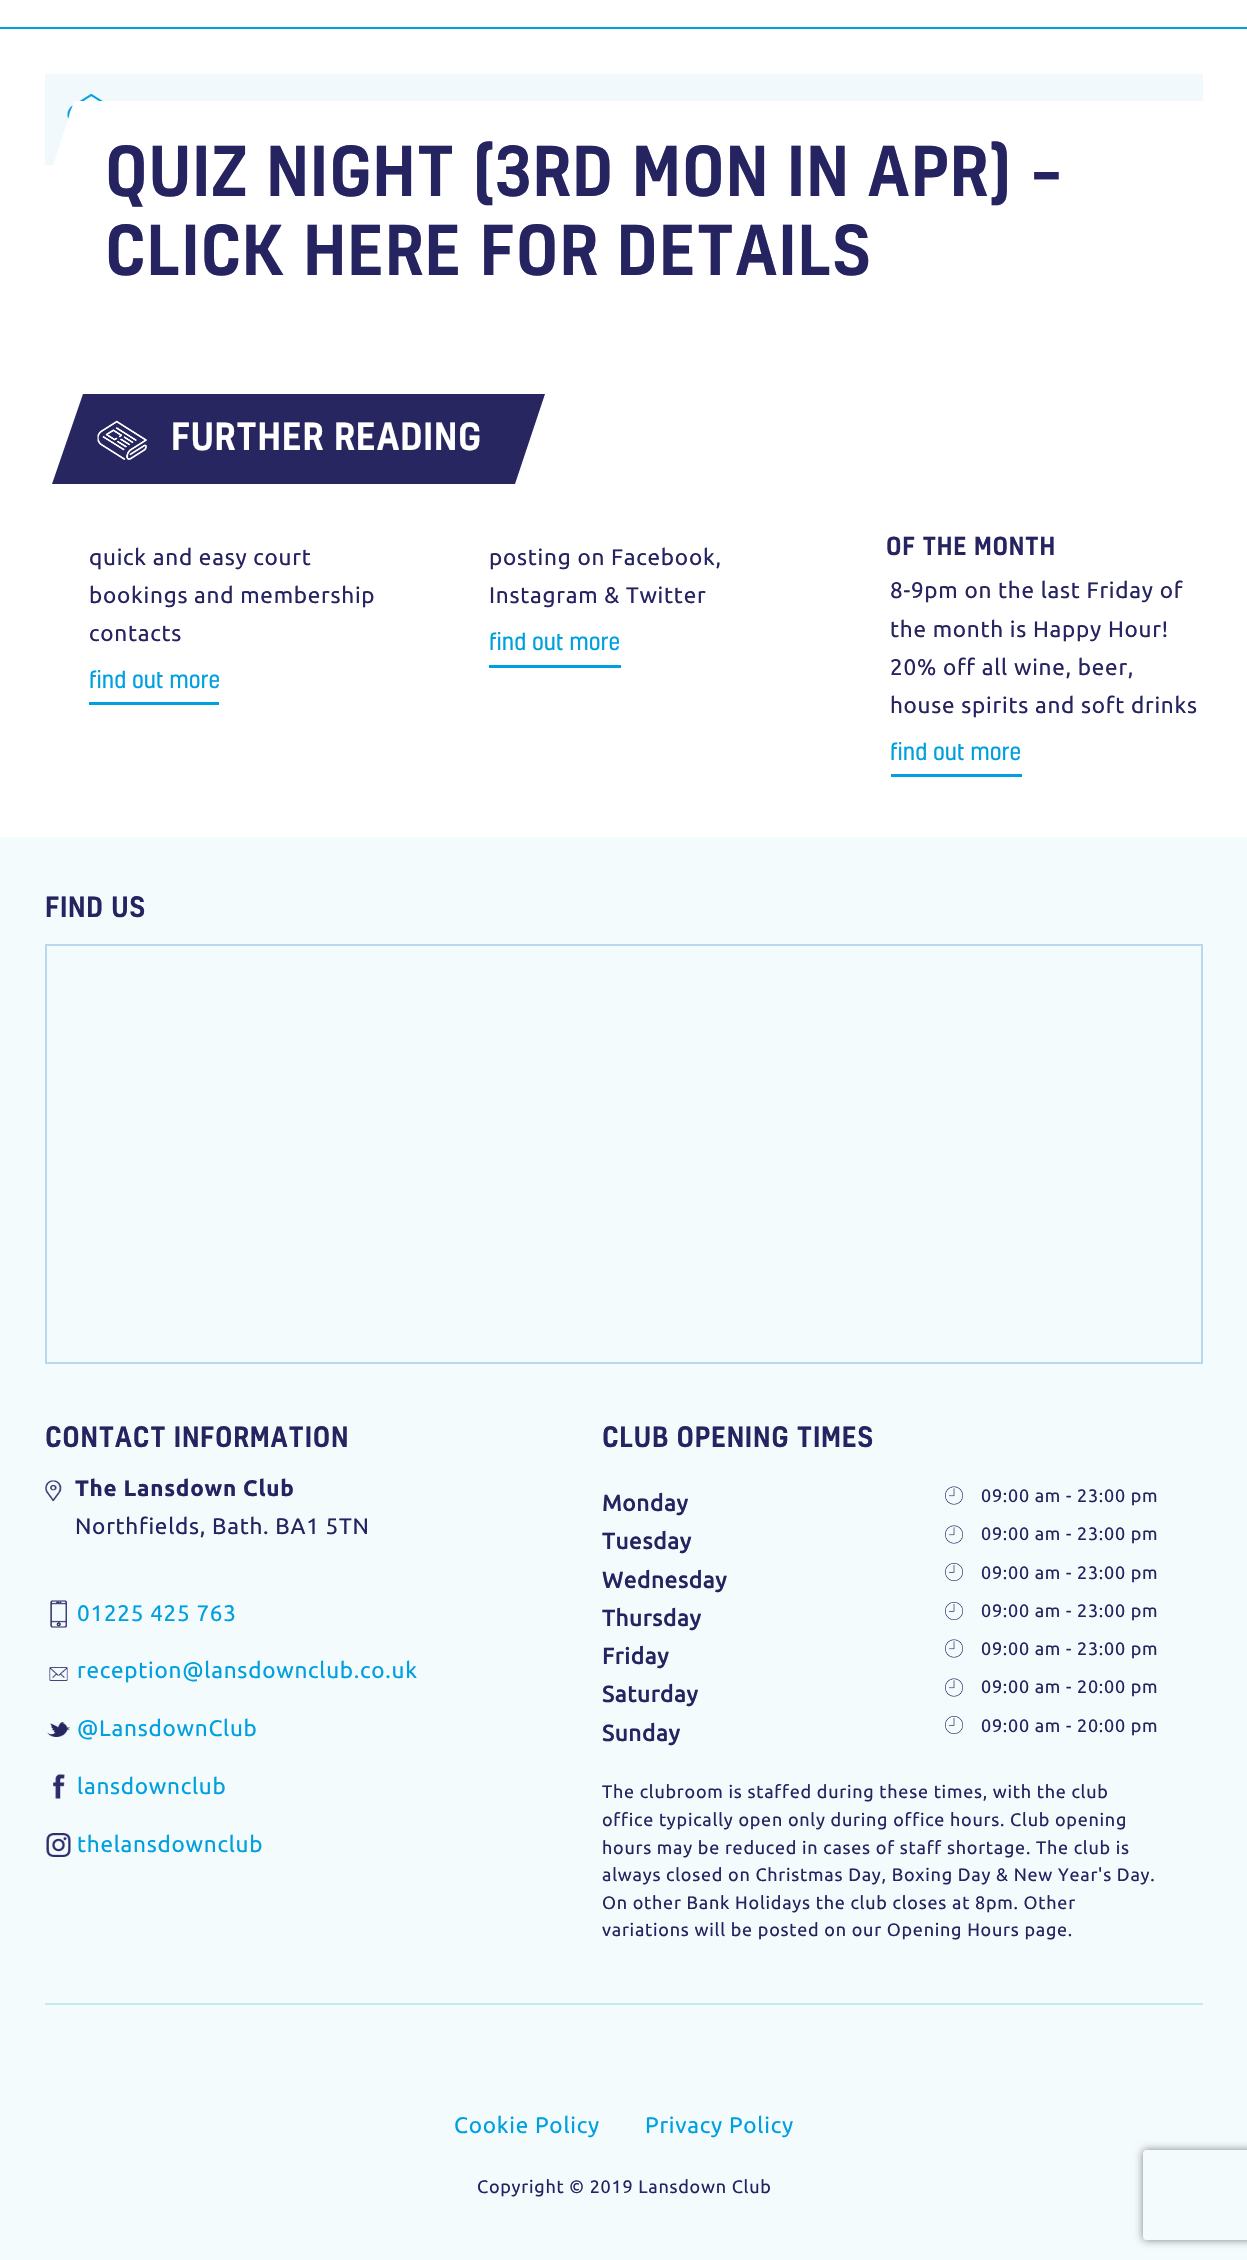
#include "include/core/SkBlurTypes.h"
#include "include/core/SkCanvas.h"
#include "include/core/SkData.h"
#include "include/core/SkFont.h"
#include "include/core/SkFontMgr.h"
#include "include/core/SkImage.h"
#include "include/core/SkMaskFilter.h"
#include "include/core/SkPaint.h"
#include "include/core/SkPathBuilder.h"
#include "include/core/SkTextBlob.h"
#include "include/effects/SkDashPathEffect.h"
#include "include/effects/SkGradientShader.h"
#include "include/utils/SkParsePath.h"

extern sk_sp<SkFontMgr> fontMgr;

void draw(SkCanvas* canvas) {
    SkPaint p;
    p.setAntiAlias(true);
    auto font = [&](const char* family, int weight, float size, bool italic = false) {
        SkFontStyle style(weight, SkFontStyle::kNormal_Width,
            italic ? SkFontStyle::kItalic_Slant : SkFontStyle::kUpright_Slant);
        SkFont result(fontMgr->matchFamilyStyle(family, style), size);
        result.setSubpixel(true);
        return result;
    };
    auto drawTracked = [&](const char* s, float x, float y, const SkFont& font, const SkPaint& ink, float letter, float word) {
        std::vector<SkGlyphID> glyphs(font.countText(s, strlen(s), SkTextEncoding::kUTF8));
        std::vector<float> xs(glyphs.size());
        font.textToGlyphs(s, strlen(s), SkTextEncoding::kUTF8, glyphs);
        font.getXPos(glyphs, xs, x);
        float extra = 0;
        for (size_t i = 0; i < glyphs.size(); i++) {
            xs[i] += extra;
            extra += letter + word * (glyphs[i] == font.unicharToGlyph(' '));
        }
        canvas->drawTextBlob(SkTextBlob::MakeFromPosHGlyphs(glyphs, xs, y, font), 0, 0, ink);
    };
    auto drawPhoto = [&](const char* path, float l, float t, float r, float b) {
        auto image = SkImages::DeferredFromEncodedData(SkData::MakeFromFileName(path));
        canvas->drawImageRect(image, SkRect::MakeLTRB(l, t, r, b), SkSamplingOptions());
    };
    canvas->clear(0xFFFFFFFF);
    p.setColor(0xFF00A0E0);
    canvas->drawRect(SkRect::MakeLTRB(0, 27, 1247, 29), p);
    p.setColor(0xFFF1F9FD);
    canvas->drawRect(SkRect::MakeLTRB(45, 74, 1203, 165), p);
    drawPhoto("media/1.png", 67, 93, 103, 120);
    canvas->save();
    canvas->clipRect(SkRect::MakeLTRB(45, 74, 1203, 335));
    p.setColor(0xFFFFFFFF);
    canvas->drawPath(SkPathBuilder().moveTo(74, 101).lineTo(769, 101).lineTo(737, 196).lineTo(43, 196).close().detach(), p);
    canvas->restore();
    canvas->drawRect(SkRect::MakeLTRB(747, 101, 1203, 165), p);
    auto font1 = font("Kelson", 500, 66);
    p.setColor(0xFF262361);
    drawTracked("QUIZ NIGHT (3RD MON IN APR) –", 105, 196, font1, p, 1.1f, 0);
    drawTracked("CLICK HERE FOR DETAILS", 105, 275, font1, p, 1.1f, 0);
    p.setColor(0xFF272660);
    canvas->drawPath(SkPathBuilder().moveTo(83, 394).lineTo(545, 394).lineTo(515, 484).lineTo(52, 484).close().detach(), p);
    drawPhoto("media/2.png", 97, 420, 147, 460);
    auto font2 = font("Kelson", 500, 36);
    p.setColor(0xFFFFFFFF);
    drawTracked("FURTHER READING", 171, 450, font2, p, 0.75f, 0);
    auto font3 = font("Ubuntu", 400, 22.5f);
    p.setColor(0xFF262361);
    {
        const struct { const char* s; float x, y; } items[] = {
            {"quick and easy court", 89, 565},
            {"bookings and membership", 89, 603},
            {"contacts", 89, 641},
        };
        for (auto [s, x, y] : items) {
            drawTracked(s, x, y, font3, p, 0.75f, 0);
        }
    }
    p.setColor(0xFF00A0E0);
    canvas->drawRect(SkRect::MakeLTRB(89, 702, 219, 705), p);
    auto font4 = font("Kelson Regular", 400, 22.5f);
    canvas->drawString("find out more", 89, 688, font4, p);
    p.setColor(0xFF262361);
    drawTracked("posting on Facebook,", 489, 565, font3, p, 0.75f, 0);
    drawTracked("Instagram & Twitter", 489, 603, font3, p, 0.75f, 0);
    p.setColor(0xFF00A0E0);
    canvas->drawRect(SkRect::MakeLTRB(489, 665, 621, 668), p);
    canvas->drawString("find out more", 489, 650, font4, p);
    auto font5 = font("Kelson", 500, 24);
    p.setColor(0xFF262361);
    drawTracked("OF THE MONTH", 886, 555, font5, p, 0.75f, 0);
    {
        const struct { const char* s; float x, y; } items[] = {
            {"8-9pm on the last Friday of", 890, 598},
            {"the month is Happy Hour!", 890, 637},
            {"20% off all wine, beer,", 890, 675},
            {"house spirits and soft drinks", 890, 713},
        };
        for (auto [s, x, y] : items) {
            drawTracked(s, x, y, font3, p, 0.75f, 0);
        }
    }
    p.setColor(0xFF00A0E0);
    canvas->drawRect(SkRect::MakeLTRB(891, 774, 1022, 777), p);
    canvas->drawString("find out more", 890, 760, font4, p);
    p.setColor(0xFFF4FBFD);
    canvas->drawRect(SkRect::MakeLTRB(0, 837, 1247, 2260), p);
    auto font6 = font("Kelson", 500, 27);
    p.setColor(0xFF262361);
    drawTracked("FIND US", 45, 917, font6, p, 0.75f, 0);
    p.setStyle(SkPaint::kStroke_Style);
    p.setStrokeWidth(2);
    p.setColor(0xFFB9D7EE);
    canvas->drawRect(SkRect::MakeLTRB(46, 945, 1202, 1363), p);
    p.setStyle(SkPaint::kFill_Style);
    p.setColor(0xFF262361);
    drawTracked("CONTACT INFORMATION", 45, 1447, font6, p, 0.75f, 0);
    drawPhoto("media/3.png", 45, 1480, 62, 1502);
    auto font7 = font("Ubuntu", 700, 22.5f);
    drawTracked("The Lansdown Club", 75, 1496, font7, p, 0.75f, 0);
    drawTracked("Northfields, Bath. BA1 5TN", 75, 1534, font3, p, 0.75f, 0);
    drawPhoto("media/4.png", 50, 1600, 67, 1628);
    p.setColor(0xFF00A0E0);
    drawTracked("01225 425 763", 77, 1621, font3, p, 0.75f, 0);
    drawPhoto("media/5.png", 49, 1667, 68, 1681);
    drawTracked("reception@lansdownclub.co.uk", 77, 1678, font3, p, 0.75f, 0);
    drawPhoto("media/6.png", 47, 1722, 70, 1737);
    drawTracked("@LansdownClub", 77, 1736, font3, p, 0.75f, 0);
    drawPhoto("media/7.png", 53, 1774, 65, 1799);
    drawTracked("lansdownclub", 77, 1794, font3, p, 0.75f, 0);
    drawPhoto("media/8.png", 46, 1833, 71, 1857);
    drawTracked("thelansdownclub", 77, 1852, font3, p, 0.75f, 0);
    p.setColor(0xFF262361);
    drawTracked("CLUB OPENING TIMES", 602, 1447, font6, p, 0.75f, 0);
    auto font8 = font("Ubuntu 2", 700, 22.5f);
    drawTracked("Monday", 602, 1511, font8, p, 0.75f, 0);
    drawPhoto("media/9.png", 945, 1486, 963, 1505);
    auto font9 = font("Ubuntu", 400, 18);
    drawTracked("09:00 am - 23:00 pm", 981, 1502, font9, p, 0.75f, 0);
    drawTracked("Tuesday", 602, 1549, font8, p, 0.75f, 0);
    drawPhoto("media/9.png", 945, 1525, 963, 1544);
    drawTracked("09:00 am - 23:00 pm", 981, 1540, font9, p, 0.75f, 0);
    drawTracked("Wednesday", 602, 1588, font8, p, 0.75f, 0);
    drawPhoto("media/10.png", 945, 1563, 963, 1581);
    drawTracked("09:00 am - 23:00 pm", 981, 1579, font9, p, 0.75f, 0);
    drawTracked("Thursday", 602, 1626, font8, p, 0.75f, 0);
    drawPhoto("media/10.png", 945, 1602, 963, 1620);
    drawTracked("09:00 am - 23:00 pm", 981, 1617, font9, p, 0.75f, 0);
    drawTracked("Friday", 602, 1664, font8, p, 0.75f, 0);
    drawPhoto("media/9.png", 945, 1639, 963, 1658);
    drawTracked("09:00 am - 23:00 pm", 981, 1655, font9, p, 0.75f, 0);
    drawTracked("Saturday", 602, 1702, font8, p, 0.75f, 0);
    drawPhoto("media/9.png", 945, 1678, 963, 1697);
    drawTracked("09:00 am - 20:00 pm", 981, 1693, font9, p, 0.75f, 0);
    drawTracked("Sunday", 602, 1741, font8, p, 0.75f, 0);
    drawPhoto("media/10.png", 945, 1716, 963, 1734);
    {
        const struct { const char* s; float x, y; } items[] = {
            {"09:00 am - 20:00 pm", 981, 1732},
            {"The clubroom is staffed during these times, with the club", 602, 1798},
            {"office typically open only during office hours. Club opening", 602, 1826},
            {"hours may be reduced in cases of staff shortage. The club is", 602, 1854},
            {"always closed on Christmas Day, Boxing Day & New Year's Day.", 602, 1881},
            {"On other Bank Holidays the club closes at 8pm. Other", 602, 1909},
            {"variations will be posted on our Opening Hours page.", 602, 1936},
        };
        for (auto [s, x, y] : items) {
            drawTracked(s, x, y, font9, p, 0.75f, 0);
        }
    }
    p.setColor(0xFFC6E7F6);
    canvas->drawRect(SkRect::MakeLTRB(45, 2003, 1203, 2005), p);
    p.setColor(0xFF00A0E0);
    drawTracked("Cookie Policy", 454, 2133, font3, p, 0.75f, 0);
    drawTracked("Privacy Policy", 645, 2133, font3, p, 0.75f, 0);
    p.setColor(0xFF262361);
    drawTracked("Copyright © 2019 Lansdown Club", 477, 2193, font9, p, 0.75f, 0);
    canvas->save();
    canvas->clipPath(SkPathBuilder(SkPathFillType::kEvenOdd).moveTo(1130, 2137).lineTo(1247, 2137).lineTo(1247, 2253).lineTo(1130, 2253).close().moveTo(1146, 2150).lineTo(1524, 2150).cubicTo(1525.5f, 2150, 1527, 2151.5f, 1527, 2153).lineTo(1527, 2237).cubicTo(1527, 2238.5f, 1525.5f, 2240, 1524, 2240).lineTo(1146, 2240).cubicTo(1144.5f, 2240, 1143, 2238.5f, 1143, 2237).lineTo(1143, 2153).cubicTo(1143, 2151.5f, 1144.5f, 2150, 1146, 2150).close().detach(), true);
    p.setColor(0xFF808080);
    p.setMaskFilter(SkMaskFilter::MakeBlur(kNormal_SkBlurStyle, 4));
    canvas->drawRoundRect(SkRect::MakeLTRB(1143, 2150, 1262, 2240), 3, 3, p);
    p.setMaskFilter(nullptr);
    canvas->restore();
}
